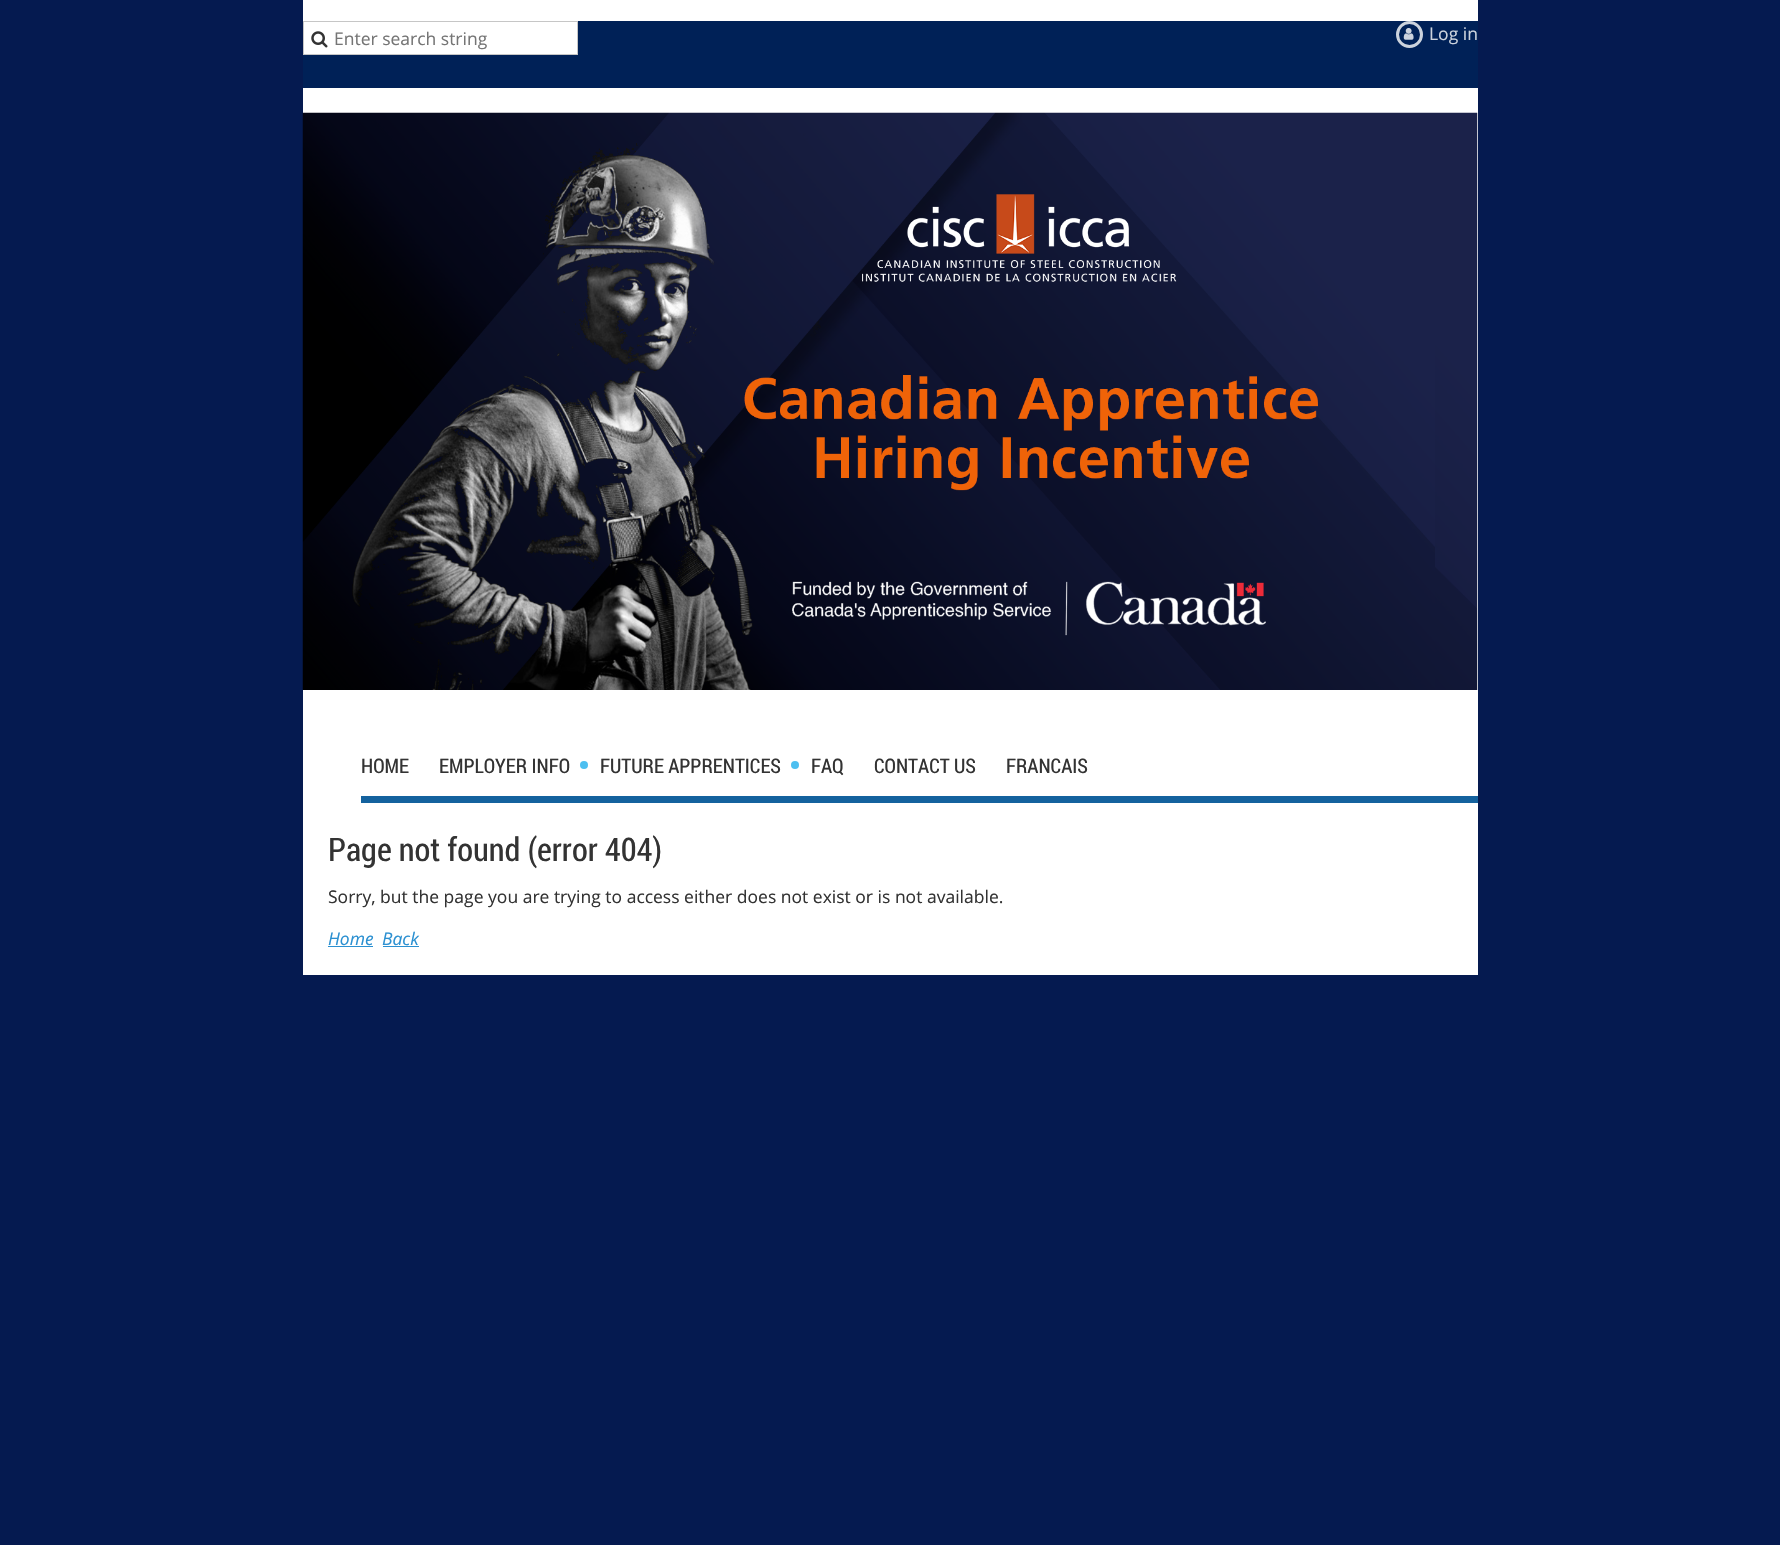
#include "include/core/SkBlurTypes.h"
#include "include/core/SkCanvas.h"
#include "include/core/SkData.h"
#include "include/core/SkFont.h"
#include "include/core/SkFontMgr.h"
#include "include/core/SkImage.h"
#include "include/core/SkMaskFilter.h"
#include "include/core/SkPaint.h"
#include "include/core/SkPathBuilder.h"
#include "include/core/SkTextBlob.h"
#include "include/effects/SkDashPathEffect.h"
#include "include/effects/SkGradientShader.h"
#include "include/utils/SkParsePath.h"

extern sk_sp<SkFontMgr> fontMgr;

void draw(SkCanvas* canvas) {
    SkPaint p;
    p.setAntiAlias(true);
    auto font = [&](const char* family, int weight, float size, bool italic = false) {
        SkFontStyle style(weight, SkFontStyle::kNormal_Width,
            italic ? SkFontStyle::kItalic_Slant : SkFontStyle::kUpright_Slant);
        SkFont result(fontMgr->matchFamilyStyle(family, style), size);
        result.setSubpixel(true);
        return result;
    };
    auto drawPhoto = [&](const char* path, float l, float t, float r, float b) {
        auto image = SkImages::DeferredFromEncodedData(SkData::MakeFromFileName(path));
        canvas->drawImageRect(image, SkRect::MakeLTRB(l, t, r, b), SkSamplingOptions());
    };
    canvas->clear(0xFF051A50);
    {
        const struct { float l, t, r, b; SkColor color; } items[] = {
            {303, 88, 1478, 975, 0xFFFFFFFF},
            {303, 0, 1478, 21, 0xFFFFFFFF},
            {303, 21, 1478, 88, 0xFF002157},
        };
        for (auto [l, t, r, b, color] : items) {
            p.setColor(color);
            canvas->drawRect(SkRect::MakeLTRB(l, t, r, b), p);
        }
    }
    p.setColor(0xFFFFFFFF);
    canvas->drawRect(SkRect::MakeLTRB(303.5f, 21.5f, 577.5f, 54.5f), p);
    p.setStyle(SkPaint::kStroke_Style);
    p.setStrokeWidth(1);
    p.setColor(0xFFC6C6C6);
    canvas->drawRect(SkRect::MakeLTRB(303.5f, 21.5f, 577.5f, 54.5f), p);
    drawPhoto("media/1.png", 311, 31, 328, 48);
    auto font1 = font("Open Sans", 400, 17.5f);
    p.setStyle(SkPaint::kFill_Style);
    p.setColor(0xFF757575);
    canvas->drawString("Enter search string", 334, 45, font1, p);
    p.setStyle(SkPaint::kStroke_Style);
    p.setStrokeWidth(3);
    p.setColor(0xFFCCD3DD);
    canvas->drawCircle(1409.5f, 34.5f, 12, p);
    drawPhoto("media/2.png", 1403, 28, 1414, 40);
    p.setStyle(SkPaint::kFill_Style);
    canvas->drawString("Log in", 1429, 40, font1, p);
    drawPhoto("media/3.png", 302, 112, 1478, 690);
    p.setColor(0xFF14629E);
    canvas->drawRect(SkRect::MakeLTRB(361, 796, 1478, 803), p);
    auto font2 = font("Roboto Condensed", 400, 20);
    p.setColor(0xFF333333);
    canvas->drawString("HOME", 361, 773, font2, p);
    canvas->drawString("EMPLOYER INFO", 439, 773, font2, p);
    p.setColor(0xFF4DBFF0);
    canvas->drawCircle(584, 765, 4, p);
    p.setColor(0xFF333333);
    canvas->drawString("FUTURE APPRENTICES", 600, 773, font2, p);
    p.setColor(0xFF4DBFF0);
    canvas->drawCircle(795, 765, 4, p);
    p.setColor(0xFF333333);
    {
        const struct { const char* s; float x, y; } items[] = {
            {"FAQ", 811, 773},
            {"CONTACT US", 874, 773},
            {"FRANCAIS", 1006, 773},
        };
        for (auto [s, x, y] : items) {
            canvas->drawString(s, x, y, font2, p);
        }
    }
    auto font3 = font("Roboto Condensed", 400, 32.5f);
    canvas->drawString("Page not found (error 404)", 328, 861, font3, p);
    canvas->drawString("Sorry, but the page you are trying to access either does not exist or is not available.", 328, 903, font1, p);
    auto font4 = font("Open Sans", 400, 17.5f, true);
    p.setColor(0xFF2B90D1);
    canvas->drawString("Home", 328, 945, font4, p);
    canvas->drawRect(SkRect::MakeLTRB(328, 946, 373, 947), p);
    canvas->drawString("Back", 382, 945, font4, p);
    canvas->drawRect(SkRect::MakeLTRB(383, 946, 419, 947), p);
}
